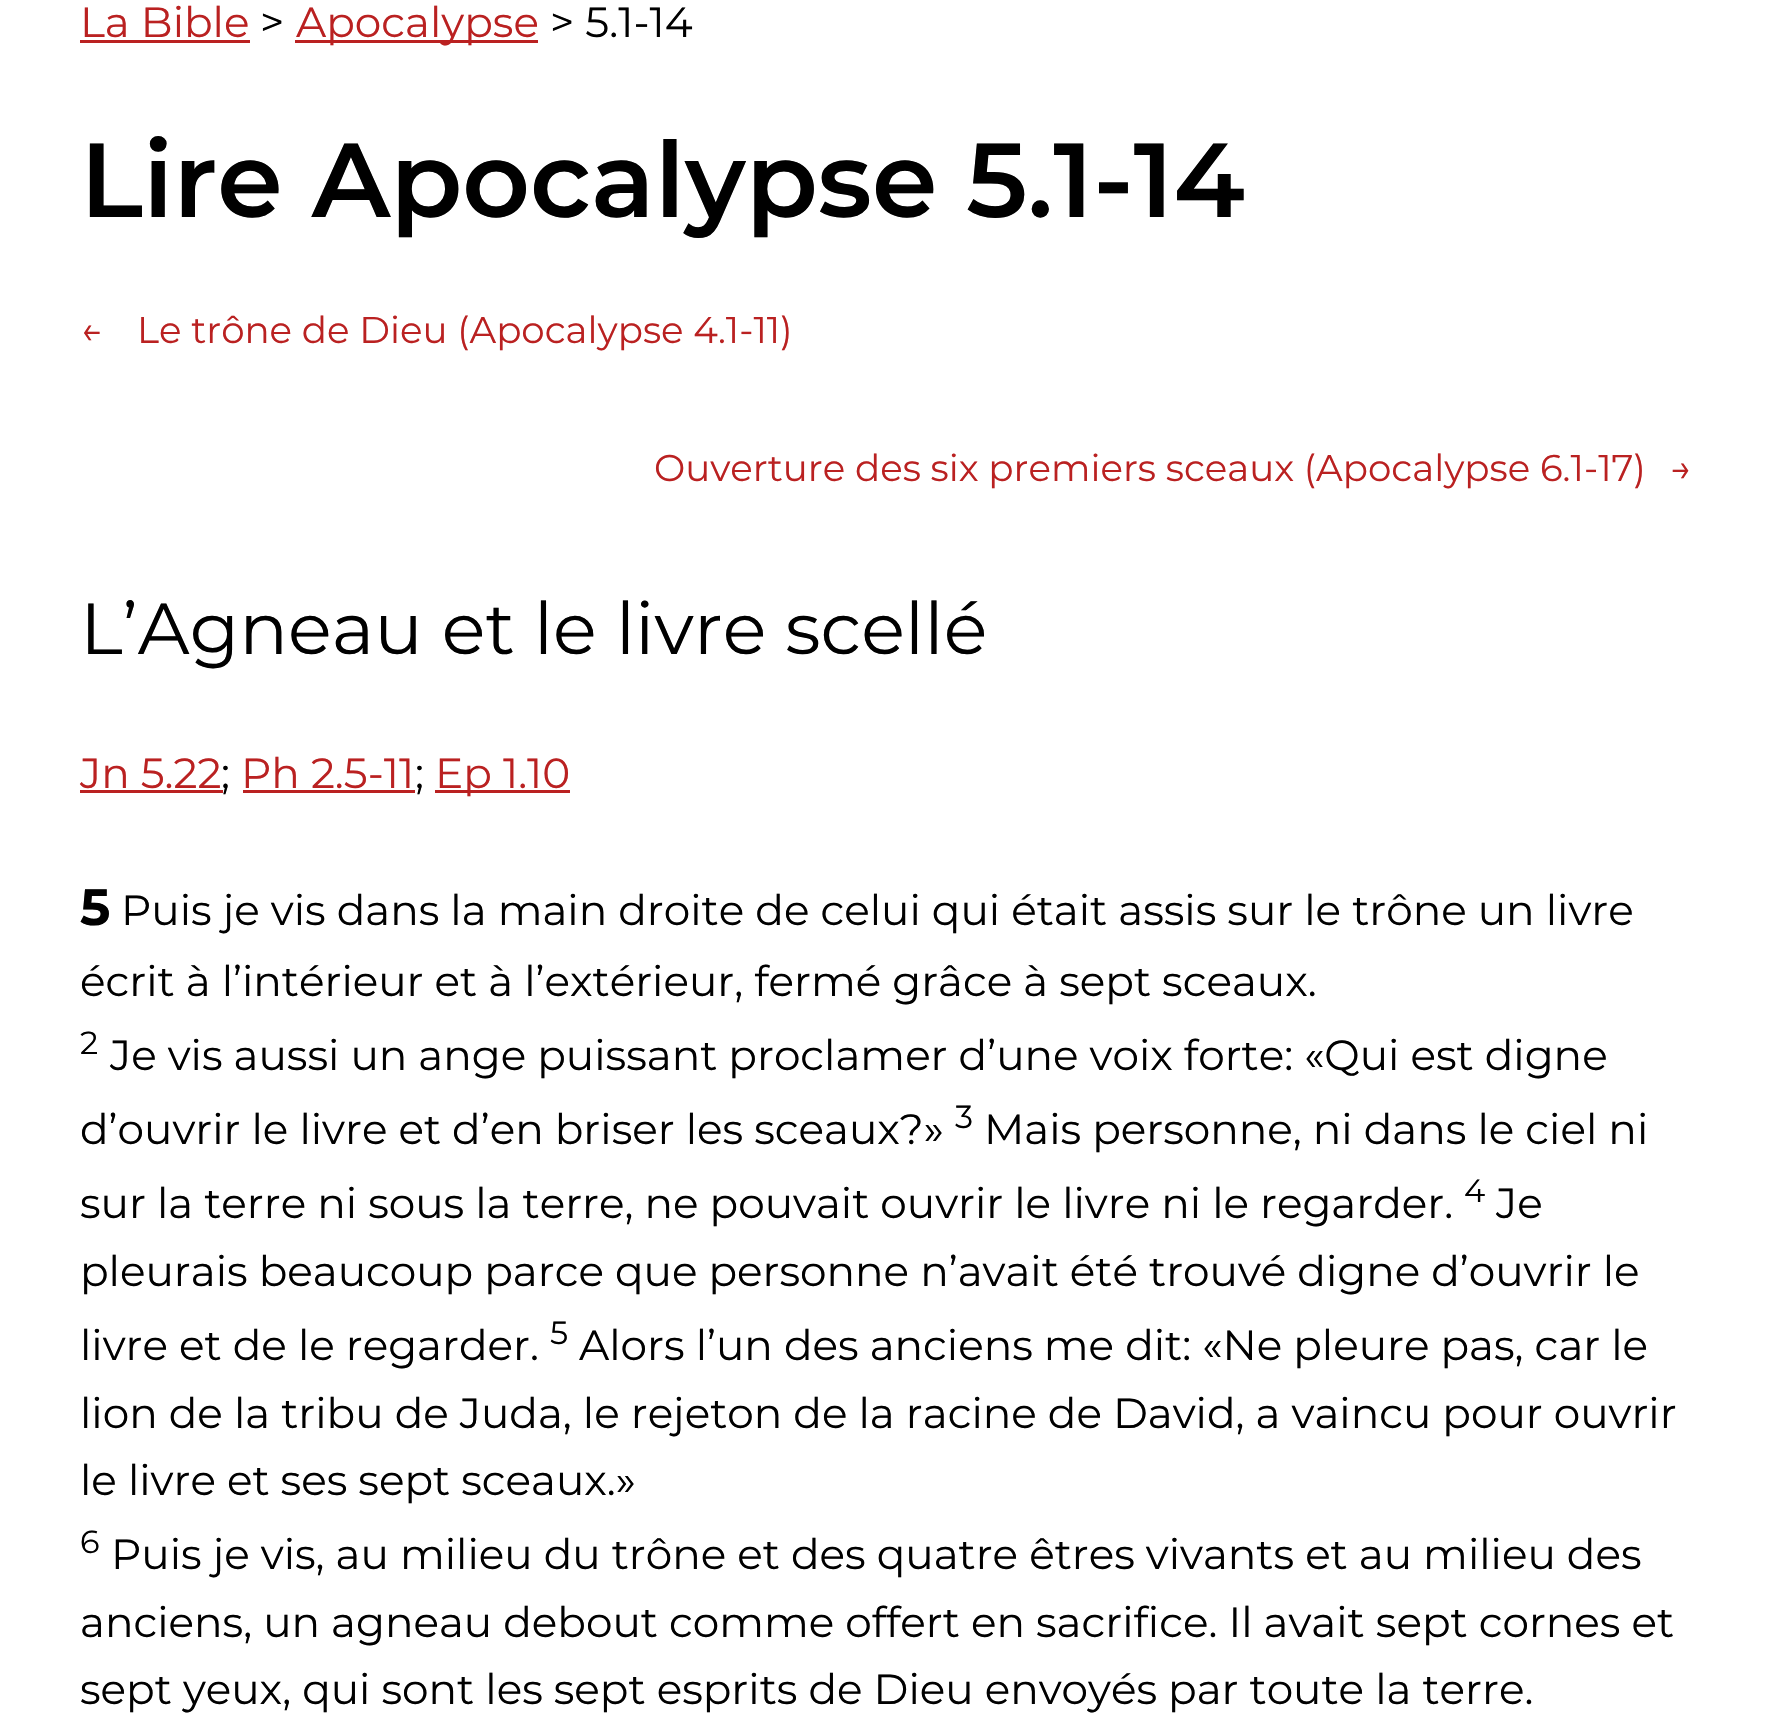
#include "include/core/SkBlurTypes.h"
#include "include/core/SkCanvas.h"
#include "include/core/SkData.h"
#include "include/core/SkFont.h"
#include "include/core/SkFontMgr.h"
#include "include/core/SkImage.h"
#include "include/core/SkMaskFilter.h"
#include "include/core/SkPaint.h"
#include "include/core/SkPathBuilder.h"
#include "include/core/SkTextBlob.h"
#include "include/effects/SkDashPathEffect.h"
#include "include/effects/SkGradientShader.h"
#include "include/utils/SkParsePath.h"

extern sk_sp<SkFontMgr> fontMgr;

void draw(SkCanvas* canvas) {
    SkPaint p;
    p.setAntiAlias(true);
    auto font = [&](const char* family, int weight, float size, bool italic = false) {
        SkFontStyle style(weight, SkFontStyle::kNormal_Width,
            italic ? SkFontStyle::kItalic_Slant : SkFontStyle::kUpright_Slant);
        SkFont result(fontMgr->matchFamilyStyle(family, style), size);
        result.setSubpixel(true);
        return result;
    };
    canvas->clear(0xFFFFFFFF);
    auto font1 = font("Montserrat", 400, 42.2f);
    p.setColor(0xFFBA2121);
    canvas->drawString("La Bible", 80, 37, font1, p);
    canvas->drawRect(SkRect::MakeLTRB(80, 40, 250, 43), p);
    p.setColor(0xFF000000);
    canvas->drawString(">", 260, 37, font1, p);
    p.setColor(0xFFBA2121);
    canvas->drawRect(SkRect::MakeLTRB(295, 40, 538, 43), p);
    canvas->drawString("Apocalypse", 296, 37, font1, p);
    p.setColor(0xFF000000);
    canvas->drawString("> 5.1-14", 550, 37, font1, p);
    auto font2 = font("Montserrat", 600, 105);
    canvas->drawString("Lire Apocalypse 5.1-14", 80, 217, font2, p);
    auto font3 = font("Montserrat", 400, 37.2f);
    p.setColor(0xFFBA2121);
    {
        const struct { const char* s; float x, y; } items[] = {
            {"←", 80, 343},
            {"Le trône de Dieu (Apocalypse 4.1-11)", 137, 343},
            {"Ouverture des six premiers sceaux (Apocalypse 6.1-17)", 654, 481},
            {"→", 1670, 481},
        };
        for (auto [s, x, y] : items) {
            canvas->drawString(s, x, y, font3, p);
        }
    }
    auto font4 = font("Montserrat", 400, 72.25f);
    p.setColor(0xFF000000);
    canvas->drawString("L’Agneau et le livre scellé", 80, 654, font4, p);
    p.setColor(0xFFBA2121);
    canvas->drawString("Jn 5.22", 80, 788, font1, p);
    canvas->drawRect(SkRect::MakeLTRB(80, 790, 223, 793), p);
    p.setColor(0xFF000000);
    canvas->drawString(";", 221, 788, font1, p);
    p.setColor(0xFFBA2121);
    canvas->drawString("Ph 2.5-11", 241, 788, font1, p);
    canvas->drawRect(SkRect::MakeLTRB(243, 790, 415, 793), p);
    p.setColor(0xFF000000);
    canvas->drawString(";", 415, 788, font1, p);
    p.setColor(0xFFBA2121);
    canvas->drawRect(SkRect::MakeLTRB(435, 790, 570, 793), p);
    canvas->drawString("Ep 1.10", 435, 788, font1, p);
    auto font5 = font("Montserrat", 700, 51);
    p.setColor(0xFF000000);
    canvas->drawString("5", 80, 925, font5, p);
    canvas->drawString("Puis je vis dans la main droite de celui qui était assis sur le trône un livre", 121, 925, font1, p);
    canvas->drawString("écrit à l’intérieur et à l’extérieur, fermé grâce à sept sceaux.", 80, 996, font1, p);
    auto font6 = font("Montserrat", 400, 32);
    canvas->drawString("2", 80, 1054, font6, p);
    canvas->drawString("Je vis aussi un ange puissant proclamer d’une voix forte: «Qui est digne", 110, 1070, font1, p);
    canvas->drawString("d’ouvrir le livre et d’en briser les sceaux?»", 80, 1144, font1, p);
    canvas->drawString("3", 955, 1128, font6, p);
    canvas->drawString("Mais personne, ni dans le ciel ni", 984, 1144, font1, p);
    canvas->drawString("sur la terre ni sous la terre, ne pouvait ouvrir le livre ni le regarder.", 80, 1218, font1, p);
    canvas->drawString("4", 1464, 1202, font6, p);
    {
        const struct { const char* s; float x, y; } items[] = {
            {"Je", 1496, 1218},
            {"pleurais beaucoup parce que personne n’avait été trouvé digne d’ouvrir le", 80, 1286},
            {"livre et de le regarder.", 80, 1360},
        };
        for (auto [s, x, y] : items) {
            canvas->drawString(s, x, y, font1, p);
        }
    }
    canvas->drawString("5", 550, 1344, font6, p);
    {
        const struct { const char* s; float x, y; } items[] = {
            {"Alors l’un des anciens me dit: «Ne pleure pas, car le", 579, 1360},
            {"lion de la tribu de Juda, le rejeton de la racine de David, a vaincu pour ouvrir", 80, 1428},
            {"le livre et ses sept sceaux.»", 80, 1495},
        };
        for (auto [s, x, y] : items) {
            canvas->drawString(s, x, y, font1, p);
        }
    }
    canvas->drawString("6", 80, 1553, font6, p);
    {
        const struct { const char* s; float x, y; } items[] = {
            {"Puis je vis, au milieu du trône et des quatre êtres vivants et au milieu des", 111, 1569},
            {"anciens, un agneau debout comme offert en sacrifice. Il avait sept cornes et", 80, 1637},
            {"sept yeux, qui sont les sept esprits de Dieu envoyés par toute la terre.", 80, 1704},
        };
        for (auto [s, x, y] : items) {
            canvas->drawString(s, x, y, font1, p);
        }
    }
}
